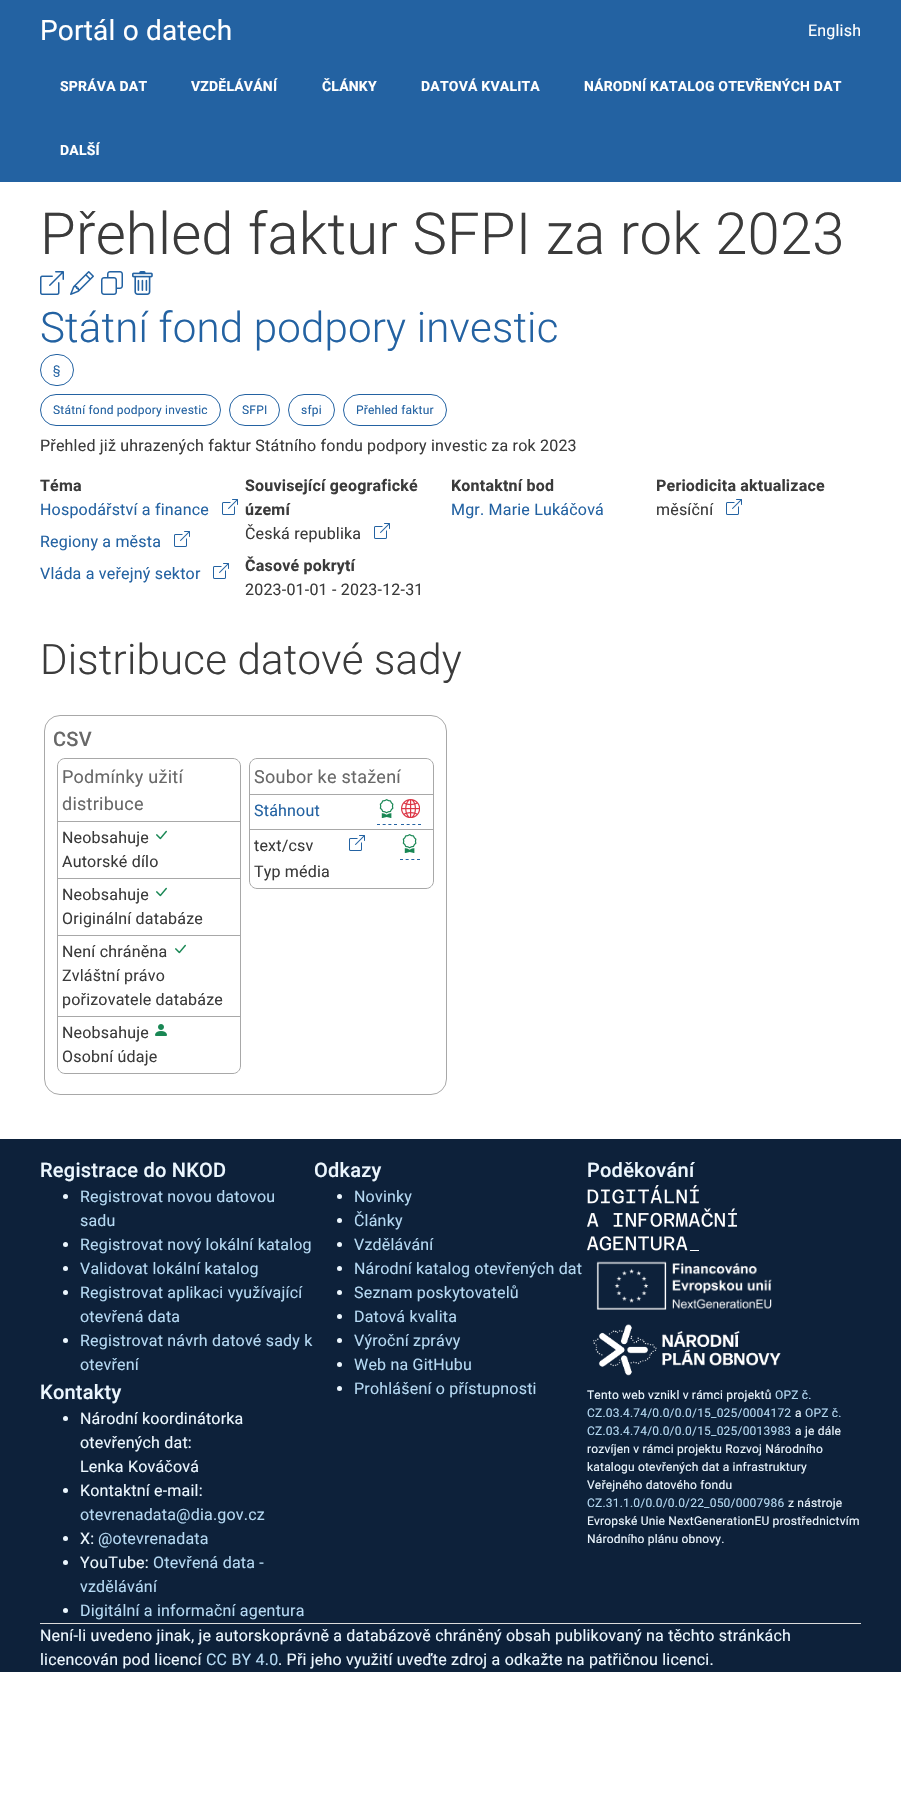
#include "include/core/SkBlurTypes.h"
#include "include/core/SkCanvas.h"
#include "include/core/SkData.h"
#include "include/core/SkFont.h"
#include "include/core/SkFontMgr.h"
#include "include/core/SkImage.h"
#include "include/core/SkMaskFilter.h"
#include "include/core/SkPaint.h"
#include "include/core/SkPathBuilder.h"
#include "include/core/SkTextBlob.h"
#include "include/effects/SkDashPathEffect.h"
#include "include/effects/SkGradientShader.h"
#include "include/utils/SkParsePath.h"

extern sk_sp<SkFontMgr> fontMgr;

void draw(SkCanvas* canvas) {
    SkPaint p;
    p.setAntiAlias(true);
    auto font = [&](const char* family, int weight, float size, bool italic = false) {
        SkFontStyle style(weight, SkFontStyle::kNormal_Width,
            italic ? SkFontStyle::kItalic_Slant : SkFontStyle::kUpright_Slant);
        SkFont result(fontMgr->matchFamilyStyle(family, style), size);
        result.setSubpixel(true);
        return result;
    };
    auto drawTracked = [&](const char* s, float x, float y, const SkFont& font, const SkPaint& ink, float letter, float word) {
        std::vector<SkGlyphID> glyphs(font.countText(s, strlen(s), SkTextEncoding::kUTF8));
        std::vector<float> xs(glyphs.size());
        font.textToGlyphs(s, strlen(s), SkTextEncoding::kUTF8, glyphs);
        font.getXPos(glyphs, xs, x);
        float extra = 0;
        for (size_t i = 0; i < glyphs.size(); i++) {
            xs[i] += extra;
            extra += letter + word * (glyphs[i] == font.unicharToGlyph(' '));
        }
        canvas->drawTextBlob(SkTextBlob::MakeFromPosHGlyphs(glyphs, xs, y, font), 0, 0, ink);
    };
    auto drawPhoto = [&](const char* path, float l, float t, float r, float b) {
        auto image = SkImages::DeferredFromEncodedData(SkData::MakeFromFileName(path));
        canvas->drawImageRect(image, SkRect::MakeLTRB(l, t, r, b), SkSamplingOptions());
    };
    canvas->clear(0xFFFFFFFF);
    p.setColor(0xFF2362A2);
    canvas->drawRect(SkRect::MakeLTRB(0, 0, 901, 182), p);
    auto font1 = font("Roboto", 400, 28);
    p.setColor(0xFFFFFFFF);
    drawTracked("Portál o datech", 40, 40, font1, p, 0.2f, 0);
    auto font2 = font("Roboto", 400, 16);
    drawTracked("English", 808, 36, font2, p, 0.2f, 0);
    auto font3 = font("Roboto", 700, 14);
    {
        const struct { const char* s; float x, y; } items[] = {
            {"SPRÁVA DAT", 60, 91},
            {"VZDĚLÁVÁNÍ", 191, 91},
            {"ČLÁNKY", 322, 91},
            {"DATOVÁ KVALITA", 421, 91},
            {"NÁRODNÍ KATALOG OTEVŘENÝCH DAT", 584, 91},
            {"DALŠÍ", 60, 155},
        };
        for (auto [s, x, y] : items) {
            drawTracked(s, x, y, font3, p, 0.2f, 0);
        }
    }
    auto font4 = font("Roboto", 300, 58);
    p.setColor(0xFF3B3B3B);
    drawTracked("Přehled faktur SFPI za rok 2023", 40, 254, font4, p, 0.2f, 0);
    drawPhoto("media/1.png", 40, 271, 64, 295);
    drawPhoto("media/2.png", 70, 271, 94, 295);
    drawPhoto("media/3.png", 101, 271, 123, 295);
    drawPhoto("media/4.png", 132, 271, 153, 295);
    auto font5 = font("Roboto", 300, 42);
    p.setColor(0xFF2362A2);
    drawTracked("Státní fond podpory investic", 40, 342, font5, p, 0.2f, 0);
    p.setStyle(SkPaint::kStroke_Style);
    p.setStrokeWidth(1);
    canvas->drawRoundRect(SkRect::MakeLTRB(40.5f, 354.5f, 73.5f, 385.5f), 15.5f, 15.5f, p);
    auto font6 = font("Roboto", 400, 12);
    p.setStyle(SkPaint::kFill_Style);
    drawTracked("§", 53, 374, font6, p, 0.2f, 0);
    p.setStyle(SkPaint::kStroke_Style);
    canvas->drawRoundRect(SkRect::MakeLTRB(40.5f, 394.5f, 220.5f, 425.5f), 15.5f, 15.5f, p);
    p.setStyle(SkPaint::kFill_Style);
    drawTracked("Státní fond podpory investic", 53, 414, font6, p, 0.2f, 0);
    p.setStyle(SkPaint::kStroke_Style);
    canvas->drawRoundRect(SkRect::MakeLTRB(229.5f, 394.5f, 279.5f, 425.5f), 15.5f, 15.5f, p);
    p.setStyle(SkPaint::kFill_Style);
    drawTracked("SFPI", 242, 414, font6, p, 0.2f, 0);
    p.setStyle(SkPaint::kStroke_Style);
    canvas->drawRoundRect(SkRect::MakeLTRB(288.5f, 394.5f, 334.5f, 425.5f), 15.5f, 15.5f, p);
    p.setStyle(SkPaint::kFill_Style);
    drawTracked("sfpi", 301, 414, font6, p, 0.2f, 0);
    p.setStyle(SkPaint::kStroke_Style);
    canvas->drawRoundRect(SkRect::MakeLTRB(343.5f, 394.5f, 446.5f, 425.5f), 15.5f, 15.5f, p);
    p.setStyle(SkPaint::kFill_Style);
    drawTracked("Přehled faktur", 356, 414, font6, p, 0.2f, 0);
    p.setColor(0xFF3B3B3B);
    drawTracked("Přehled již uhrazených faktur Státního fondu podpory investic za rok 2023", 40, 451, font2, p, 0.2f, 0);
    auto font7 = font("Roboto", 700, 16);
    drawTracked("Téma", 40, 491, font7, p, 0.2f, 0);
    p.setColor(0xFF2362A2);
    drawTracked("Hospodářství a finance", 40, 515, font2, p, 0.2f, 0);
    drawPhoto("media/5.png", 222, 499, 238, 515);
    drawTracked("Regiony a města", 40, 547, font2, p, 0.2f, 0);
    drawPhoto("media/5.png", 174, 531, 190, 547);
    drawTracked("Vláda a veřejný sektor", 40, 579, font2, p, 0.2f, 0);
    drawPhoto("media/5.png", 213, 563, 229, 579);
    p.setColor(0xFF3B3B3B);
    drawTracked("Související geografické", 245, 491, font7, p, 0.2f, 0);
    drawTracked("území", 245, 515, font7, p, 0.2f, 0);
    drawTracked("Česká republika", 245, 539, font2, p, 0.2f, 0);
    drawPhoto("media/5.png", 374, 523, 390, 539);
    drawTracked("Časové pokrytí", 245, 571, font7, p, 0.2f, 0);
    drawTracked("2023-01-01 - 2023-12-31", 245, 595, font2, p, 0.2f, 0);
    drawTracked("Kontaktní bod", 451, 491, font7, p, 0.2f, 0);
    p.setColor(0xFF2362A2);
    drawTracked("Mgr. Marie Lukáčová", 451, 515, font2, p, 0.2f, 0);
    p.setColor(0xFF3B3B3B);
    drawTracked("Periodicita aktualizace", 656, 491, font7, p, 0.2f, 0);
    drawTracked("měsíční", 656, 515, font2, p, 0.2f, 0);
    drawPhoto("media/5.png", 726, 499, 742, 515);
    drawTracked("Distribuce datové sady", 40, 674, font5, p, 0.2f, 0);
    p.setStyle(SkPaint::kStroke_Style);
    p.setColor(0xFFA8A8A8);
    canvas->drawRoundRect(SkRect::MakeLTRB(44.5f, 715.5f, 446.5f, 1094.5f), 15.5f, 15.5f, p);
    auto font8 = font("Roboto", 500, 20);
    p.setStyle(SkPaint::kFill_Style);
    p.setColor(0xFF686868);
    drawTracked("CSV", 53, 746, font8, p, 0.25f, 0);
    p.setStyle(SkPaint::kStroke_Style);
    p.setColor(0xFFA8A8A8);
    canvas->drawPath(SkPathBuilder().moveTo(65, 758.5f).lineTo(233, 758.5f).cubicTo(237, 758.5f, 240.5f, 762, 240.5f, 766).lineTo(240.5f, 821.5f).lineTo(57.5f, 821.5f).lineTo(57.5f, 766).cubicTo(57.5f, 762, 61, 758.5f, 65, 758.5f).close().detach(), p);
    auto font9 = font("Roboto", 400, 18);
    p.setStyle(SkPaint::kFill_Style);
    p.setColor(0xFF686868);
    drawTracked("Podmínky užití", 62, 783, font9, p, 0.25f, 0);
    drawTracked("distribuce", 62, 810, font9, p, 0.25f, 0);
    p.setStyle(SkPaint::kStroke_Style);
    p.setColor(0xFFA8A8A8);
    canvas->drawRect(SkRect::MakeLTRB(57.5f, 821.5f, 240.5f, 878.5f), p);
    p.setStyle(SkPaint::kFill_Style);
    p.setColor(0xFF3B3B3B);
    drawTracked("Neobsahuje", 62, 843, font2, p, 0.2f, 0);
    drawPhoto("media/6.png", 156, 830, 167, 840);
    drawTracked("Autorské dílo", 62, 867, font2, p, 0.2f, 0);
    p.setStyle(SkPaint::kStroke_Style);
    p.setColor(0xFFA8A8A8);
    canvas->drawRect(SkRect::MakeLTRB(57.5f, 878.5f, 240.5f, 935.5f), p);
    p.setStyle(SkPaint::kFill_Style);
    p.setColor(0xFF3B3B3B);
    drawTracked("Neobsahuje", 62, 900, font2, p, 0.2f, 0);
    drawPhoto("media/6.png", 156, 887, 167, 897);
    drawTracked("Originální databáze", 62, 924, font2, p, 0.2f, 0);
    p.setStyle(SkPaint::kStroke_Style);
    p.setColor(0xFFA8A8A8);
    canvas->drawRect(SkRect::MakeLTRB(57.5f, 935.5f, 240.5f, 1016.5f), p);
    p.setStyle(SkPaint::kFill_Style);
    p.setColor(0xFF3B3B3B);
    drawTracked("Není chráněna", 62, 957, font2, p, 0.2f, 0);
    drawPhoto("media/6.png", 175, 944, 186, 954);
    drawTracked("Zvláštní právo", 62, 981, font2, p, 0.2f, 0);
    drawTracked("pořizovatele databáze", 62, 1005, font2, p, 0.2f, 0);
    p.setStyle(SkPaint::kStroke_Style);
    p.setColor(0xFFA8A8A8);
    canvas->drawPath(SkPathBuilder().moveTo(57.5f, 1016.5f).lineTo(240.5f, 1016.5f).lineTo(240.5f, 1066).cubicTo(240.5f, 1070, 237, 1073.5f, 233, 1073.5f).lineTo(65, 1073.5f).cubicTo(61, 1073.5f, 57.5f, 1070, 57.5f, 1066).close().detach(), p);
    p.setStyle(SkPaint::kFill_Style);
    p.setColor(0xFF3B3B3B);
    drawTracked("Neobsahuje", 62, 1038, font2, p, 0.2f, 0);
    drawPhoto("media/7.png", 155, 1024, 167, 1036);
    drawTracked("Osobní údaje", 62, 1062, font2, p, 0.2f, 0);
    p.setStyle(SkPaint::kStroke_Style);
    p.setColor(0xFFA8A8A8);
    canvas->drawPath(SkPathBuilder().moveTo(257, 758.5f).lineTo(426, 758.5f).cubicTo(430, 758.5f, 433.5f, 762, 433.5f, 766).lineTo(433.5f, 794.5f).lineTo(249.5f, 794.5f).lineTo(249.5f, 766).cubicTo(249.5f, 762, 253, 758.5f, 257, 758.5f).close().detach(), p);
    p.setStyle(SkPaint::kFill_Style);
    p.setColor(0xFF686868);
    drawTracked("Soubor ke stažení", 254, 783, font9, p, 0.25f, 0);
    p.setStyle(SkPaint::kStroke_Style);
    p.setColor(0xFFA8A8A8);
    canvas->drawRect(SkRect::MakeLTRB(249.5f, 794.5f, 433.5f, 829.5f), p);
    p.setStyle(SkPaint::kFill_Style);
    p.setColor(0xFF2362A2);
    drawTracked("Stáhnout", 254, 816, font2, p, 0.2f, 0);
    p.setStyle(SkPaint::kStroke_Style);
    p.setPathEffect(SkDashPathEffect::Make({{3, 2.67f}}, 0));
    canvas->drawPath(SkPathBuilder().moveTo(377, 824.5f).lineTo(397, 824.5f).moveTo(401, 824.5f).lineTo(421, 824.5f).detach(), p);
    p.setPathEffect(nullptr);
    drawPhoto("media/8.png", 379, 799, 394, 818);
    drawPhoto("media/9.png", 401, 799, 420, 818);
    p.setColor(0xFFA8A8A8);
    canvas->drawPath(SkPathBuilder().moveTo(249.5f, 829.5f).lineTo(433.5f, 829.5f).lineTo(433.5f, 881).cubicTo(433.5f, 885, 430, 888.5f, 426, 888.5f).lineTo(257, 888.5f).cubicTo(253, 888.5f, 249.5f, 885, 249.5f, 881).close().detach(), p);
    p.setStyle(SkPaint::kFill_Style);
    p.setColor(0xFF3B3B3B);
    drawTracked("text/csv", 254, 851, font2, p, 0.2f, 0);
    drawPhoto("media/5.png", 349, 835, 365, 851);
    p.setStyle(SkPaint::kStroke_Style);
    p.setColor(0xFF2362A2);
    p.setPathEffect(SkDashPathEffect::Make({{3, 2.67f}}, 0));
    canvas->drawPath(SkPathBuilder().moveTo(400, 859.5f).lineTo(420, 859.5f).detach(), p);
    p.setPathEffect(nullptr);
    drawPhoto("media/8.png", 402, 834, 417, 853);
    p.setStyle(SkPaint::kFill_Style);
    p.setColor(0xFF3B3B3B);
    drawTracked("Typ média", 254, 877, font2, p, 0.2f, 0);
    p.setColor(0xFF0D213A);
    canvas->drawRect(SkRect::MakeLTRB(0, 1139, 901, 1672), p);
    p.setColor(0xFFECF7FF);
    drawTracked("Registrace do NKOD", 40, 1177, font8, p, 0.25f, 0);
    canvas->drawCircle(65.5f, 1196.5f, 2.5f, p);
    p.setColor(0xFFB5D9F3);
    drawTracked("Registrovat novou datovou", 80, 1202, font2, p, 0.2f, 0);
    drawTracked("sadu", 80, 1226, font2, p, 0.2f, 0);
    p.setColor(0xFFECF7FF);
    canvas->drawCircle(65.5f, 1244.5f, 2.5f, p);
    p.setColor(0xFFB5D9F3);
    drawTracked("Registrovat nový lokální katalog", 80, 1250, font2, p, 0.2f, 0);
    p.setColor(0xFFECF7FF);
    canvas->drawCircle(65.5f, 1268.5f, 2.5f, p);
    p.setColor(0xFFB5D9F3);
    drawTracked("Validovat lokální katalog", 80, 1274, font2, p, 0.2f, 0);
    p.setColor(0xFFECF7FF);
    canvas->drawCircle(65.5f, 1292.5f, 2.5f, p);
    p.setColor(0xFFB5D9F3);
    drawTracked("Registrovat aplikaci využívající", 80, 1298, font2, p, 0.2f, 0);
    drawTracked("otevřená data", 80, 1322, font2, p, 0.2f, 0);
    p.setColor(0xFFECF7FF);
    canvas->drawCircle(65.5f, 1340.5f, 2.5f, p);
    p.setColor(0xFFB5D9F3);
    drawTracked("Registrovat návrh datové sady k", 80, 1346, font2, p, 0.2f, 0);
    drawTracked("otevření", 80, 1370, font2, p, 0.2f, 0);
    p.setColor(0xFFECF7FF);
    drawTracked("Kontakty", 40, 1399, font8, p, 0.25f, 0);
    canvas->drawCircle(65.5f, 1418.5f, 2.5f, p);
    {
        const struct { const char* s; float x, y; } items[] = {
            {"Národní koordinátorka", 80, 1424},
            {"otevřených dat:", 80, 1448},
            {"Lenka Kováčová", 80, 1472},
        };
        for (auto [s, x, y] : items) {
            drawTracked(s, x, y, font2, p, 0.2f, 0);
        }
    }
    canvas->drawCircle(65.5f, 1490.5f, 2.5f, p);
    drawTracked("Kontaktní e-mail:", 80, 1496, font2, p, 0.2f, 0);
    p.setColor(0xFFB5D9F3);
    drawTracked("otevrenadata@dia.gov.cz", 80, 1520, font2, p, 0.2f, 0);
    p.setColor(0xFFECF7FF);
    canvas->drawCircle(65.5f, 1538.5f, 2.5f, p);
    drawTracked("X:", 80, 1544, font2, p, 0.2f, 0);
    p.setColor(0xFFB5D9F3);
    drawTracked("@otevrenadata", 98, 1544, font2, p, 0.2f, 0);
    p.setColor(0xFFECF7FF);
    canvas->drawCircle(65.5f, 1562.5f, 2.5f, p);
    drawTracked("YouTube:", 80, 1568, font2, p, 0.2f, 0);
    p.setColor(0xFFB5D9F3);
    drawTracked("Otevřená data -", 153, 1568, font2, p, 0.2f, 0);
    drawTracked("vzdělávání", 80, 1592, font2, p, 0.2f, 0);
    p.setColor(0xFFECF7FF);
    canvas->drawCircle(65.5f, 1610.5f, 2.5f, p);
    p.setColor(0xFFB5D9F3);
    drawTracked("Digitální a informační agentura", 80, 1616, font2, p, 0.2f, 0);
    p.setColor(0xFFECF7FF);
    drawTracked("Odkazy", 314, 1177, font8, p, 0.25f, 0);
    canvas->drawCircle(339.5f, 1196.5f, 2.5f, p);
    p.setColor(0xFFB5D9F3);
    drawTracked("Novinky", 354, 1202, font2, p, 0.2f, 0);
    p.setColor(0xFFECF7FF);
    canvas->drawCircle(339.5f, 1220.5f, 2.5f, p);
    p.setColor(0xFFB5D9F3);
    drawTracked("Články", 354, 1226, font2, p, 0.2f, 0);
    p.setColor(0xFFECF7FF);
    canvas->drawCircle(339.5f, 1244.5f, 2.5f, p);
    p.setColor(0xFFB5D9F3);
    drawTracked("Vzdělávání", 354, 1250, font2, p, 0.2f, 0);
    p.setColor(0xFFECF7FF);
    canvas->drawCircle(339.5f, 1268.5f, 2.5f, p);
    p.setColor(0xFFB5D9F3);
    drawTracked("Národní katalog otevřených dat", 354, 1274, font2, p, 0.2f, 0);
    p.setColor(0xFFECF7FF);
    canvas->drawCircle(339.5f, 1292.5f, 2.5f, p);
    p.setColor(0xFFB5D9F3);
    drawTracked("Seznam poskytovatelů", 354, 1298, font2, p, 0.2f, 0);
    p.setColor(0xFFECF7FF);
    canvas->drawCircle(339.5f, 1316.5f, 2.5f, p);
    p.setColor(0xFFB5D9F3);
    drawTracked("Datová kvalita", 354, 1322, font2, p, 0.2f, 0);
    p.setColor(0xFFECF7FF);
    canvas->drawCircle(339.5f, 1340.5f, 2.5f, p);
    p.setColor(0xFFB5D9F3);
    drawTracked("Výroční zprávy", 354, 1346, font2, p, 0.2f, 0);
    p.setColor(0xFFECF7FF);
    canvas->drawCircle(339.5f, 1364.5f, 2.5f, p);
    p.setColor(0xFFB5D9F3);
    drawTracked("Web na GitHubu", 354, 1370, font2, p, 0.2f, 0);
    p.setColor(0xFFECF7FF);
    canvas->drawCircle(339.5f, 1388.5f, 2.5f, p);
    p.setColor(0xFFB5D9F3);
    drawTracked("Prohlášení o přístupnosti", 354, 1394, font2, p, 0.2f, 0);
    p.setColor(0xFFECF7FF);
    drawTracked("Poděkování", 587, 1177, font8, p, 0.25f, 0);
    drawPhoto("media/10.png", 587, 1185, 737, 1251);
    drawPhoto("media/11.png", 596, 1261, 772, 1310);
    drawPhoto("media/12.png", 593, 1324, 781, 1376);
    drawTracked("Tento web vznikl v rámci projektů", 587, 1399, font6, p, 0.2f, 0);
    p.setColor(0xFFB5D9F3);
    drawTracked("OPZ č.", 775, 1399, font6, p, 0.2f, 0);
    drawTracked("CZ.03.4.74/0.0/0.0/15_025/0004172", 587, 1417, font6, p, 0.2f, 0);
    p.setColor(0xFFECF7FF);
    drawTracked("a", 795, 1417, font6, p, 0.2f, 0);
    p.setColor(0xFFB5D9F3);
    drawTracked("OPZ č.", 805, 1417, font6, p, 0.2f, 0);
    drawTracked("CZ.03.4.74/0.0/0.0/15_025/0013983", 587, 1435, font6, p, 0.2f, 0);
    p.setColor(0xFFECF7FF);
    {
        const struct { const char* s; float x, y; } items[] = {
            {"a je dále", 795, 1435},
            {"rozvíjen v rámci projektu Rozvoj Národního", 587, 1453},
            {"katalogu otevřených dat a infrastruktury", 587, 1471},
            {"Veřejného datového fondu", 587, 1489},
        };
        for (auto [s, x, y] : items) {
            drawTracked(s, x, y, font6, p, 0.2f, 0);
        }
    }
    p.setColor(0xFFB5D9F3);
    drawTracked("CZ.31.1.0/0.0/0.0/22_050/0007986", 587, 1507, font6, p, 0.2f, 0);
    p.setColor(0xFFECF7FF);
    {
        const struct { const char* s; float x, y; } items[] = {
            {"z nástroje", 788, 1507},
            {"Evropské Unie NextGenerationEU prostřednictvím", 587, 1525},
            {"Národního plánu obnovy.", 587, 1543},
        };
        for (auto [s, x, y] : items) {
            drawTracked(s, x, y, font6, p, 0.2f, 0);
        }
    }
    p.setColor(0xFFDCDCDC);
    canvas->drawRect(SkRect::MakeLTRB(40, 1623, 861, 1624), p);
    p.setColor(0xFFECF7FF);
    drawTracked("Není-li uvedeno jinak, je autorskoprávně a databázově chráněný obsah publikovaný na těchto stránkách", 40, 1641, font2, p, 0.2f, 0);
    drawTracked("licencován pod licencí", 40, 1665, font2, p, 0.2f, 0);
    p.setColor(0xFFB5D9F3);
    drawTracked("CC BY 4.0", 206, 1665, font2, p, 0.2f, 0);
    p.setColor(0xFFECF7FF);
    drawTracked(". Při jeho využití uveďte zdroj a odkažte na patřičnou licenci.", 278, 1665, font2, p, 0.2f, 0);
}
